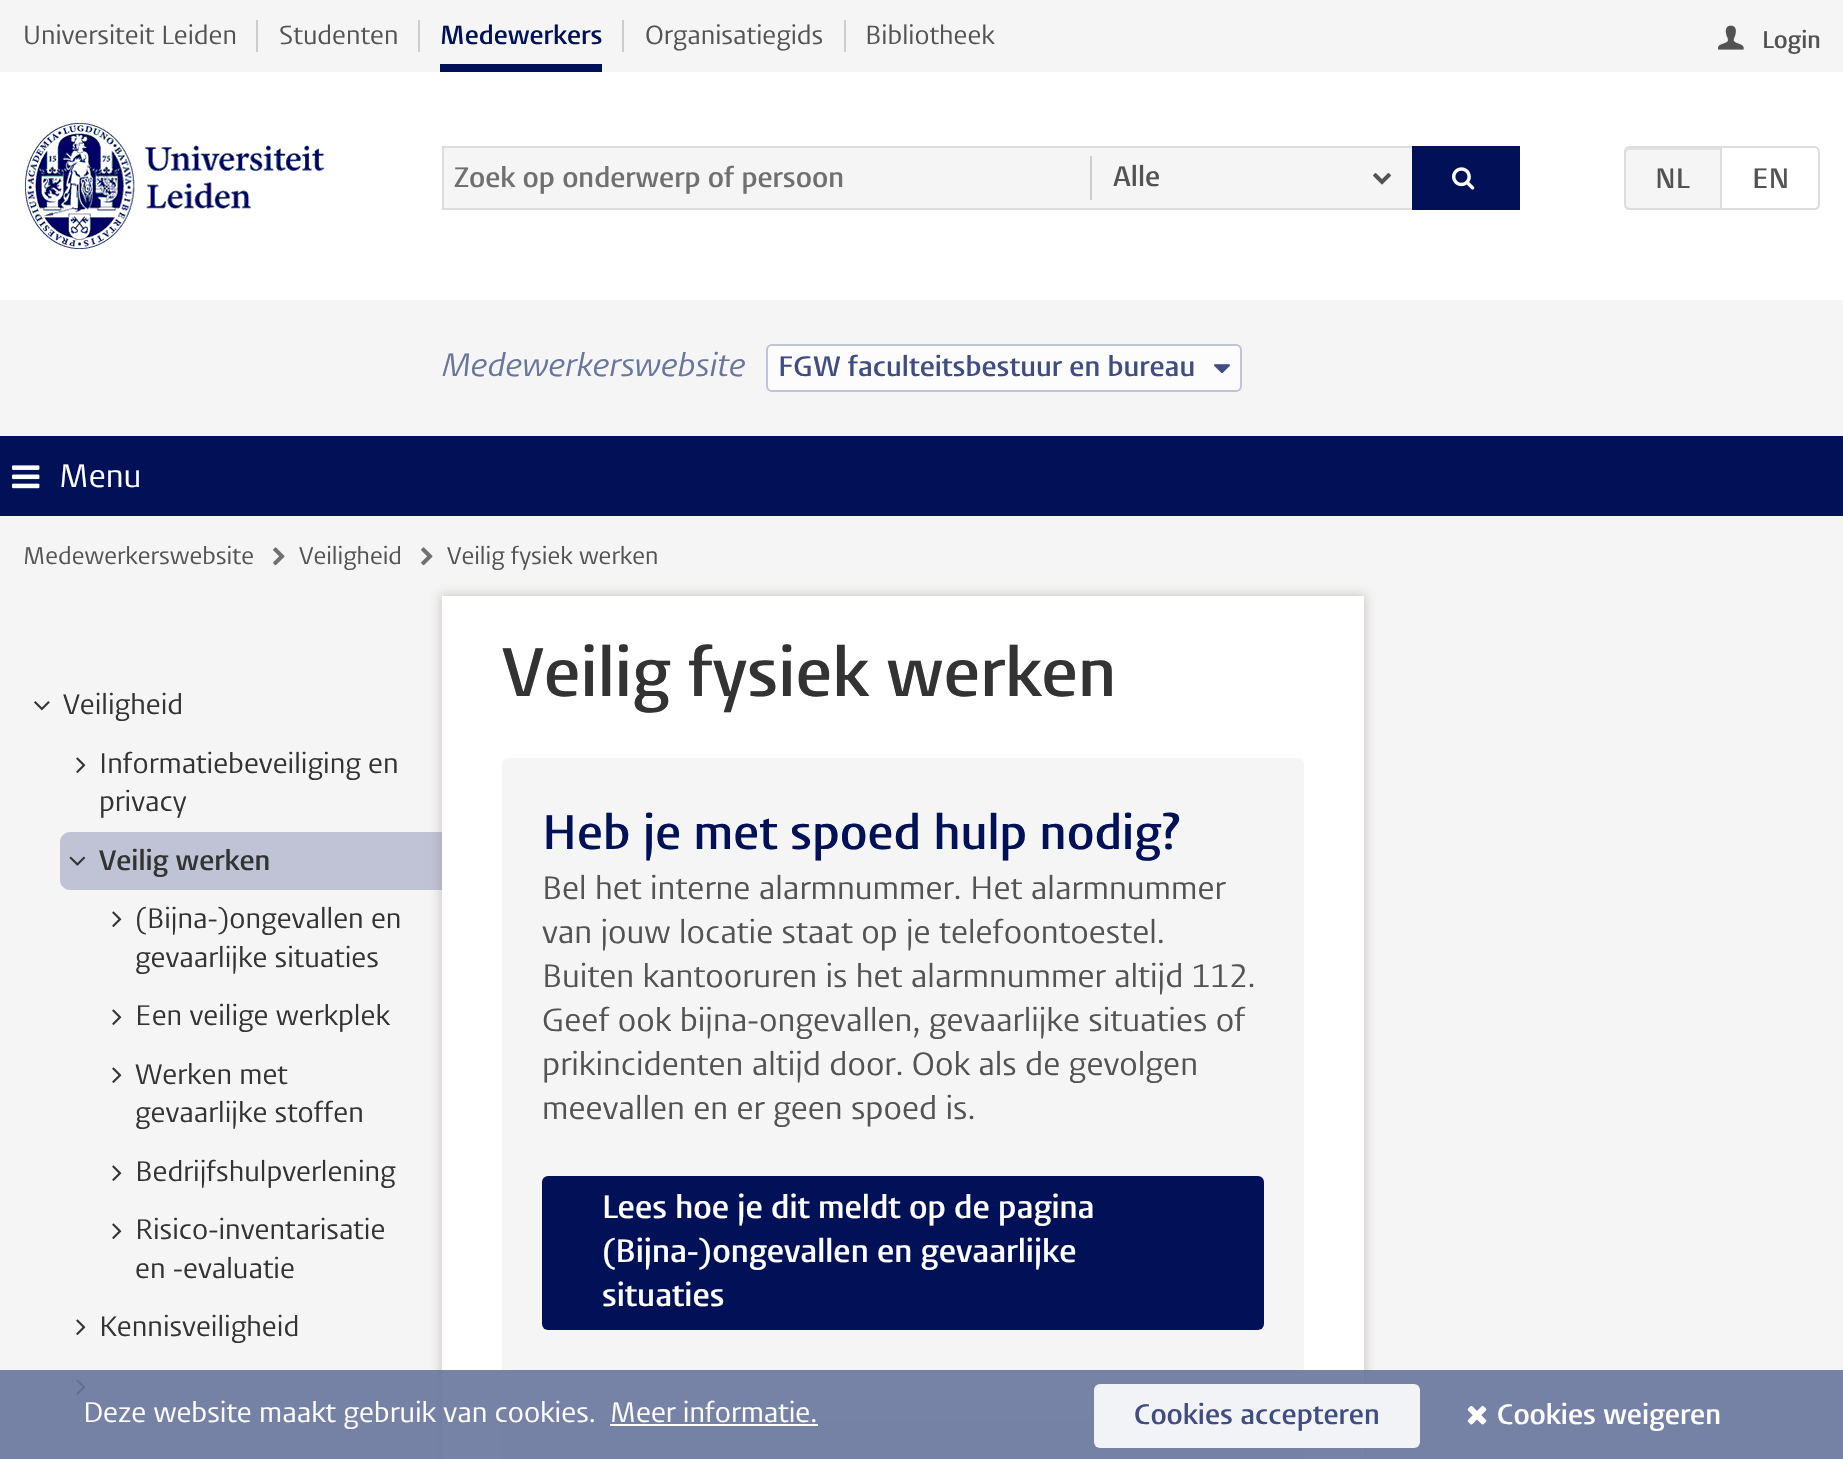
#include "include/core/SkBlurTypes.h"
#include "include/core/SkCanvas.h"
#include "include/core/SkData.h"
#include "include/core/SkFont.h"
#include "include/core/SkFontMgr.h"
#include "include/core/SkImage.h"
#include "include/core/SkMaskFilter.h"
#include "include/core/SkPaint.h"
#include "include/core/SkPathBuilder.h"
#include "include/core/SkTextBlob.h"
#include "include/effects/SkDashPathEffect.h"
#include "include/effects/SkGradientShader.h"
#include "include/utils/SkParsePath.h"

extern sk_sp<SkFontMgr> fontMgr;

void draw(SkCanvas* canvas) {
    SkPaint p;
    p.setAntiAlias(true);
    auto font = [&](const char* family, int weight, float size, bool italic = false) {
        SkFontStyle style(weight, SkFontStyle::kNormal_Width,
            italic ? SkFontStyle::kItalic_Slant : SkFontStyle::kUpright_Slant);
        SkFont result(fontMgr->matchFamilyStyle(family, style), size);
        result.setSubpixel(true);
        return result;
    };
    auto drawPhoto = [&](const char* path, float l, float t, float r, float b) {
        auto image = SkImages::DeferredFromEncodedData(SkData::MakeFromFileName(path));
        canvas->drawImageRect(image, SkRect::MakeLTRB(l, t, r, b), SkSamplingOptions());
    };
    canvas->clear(0xFFF5F5F5);
    p.setColor(0xFFFFFFFF);
    canvas->drawRect(SkRect::MakeLTRB(0, 72, 1843, 300), p);
    p.setColor(0xFFCCCCCC);
    canvas->drawRect(SkRect::MakeLTRB(256, 20, 258, 52), p);
    auto font1 = font("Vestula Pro", 400, 26);
    p.setColor(0xFF535353);
    canvas->drawString("Universiteit Leiden", 23, 44, font1, p);
    p.setColor(0xFFCCCCCC);
    canvas->drawRect(SkRect::MakeLTRB(418, 20, 420, 52), p);
    p.setColor(0xFF535353);
    canvas->drawString("Studenten", 279, 44, font1, p);
    p.setColor(0xFFCCCCCC);
    canvas->drawRect(SkRect::MakeLTRB(622, 20, 624, 52), p);
    auto font2 = font("Vestula Pro", 600, 26);
    p.setColor(0xFF001158);
    canvas->drawString("Medewerkers", 440, 44, font2, p);
    canvas->drawRect(SkRect::MakeLTRB(440, 64, 602, 72), p);
    p.setColor(0xFFCCCCCC);
    canvas->drawRect(SkRect::MakeLTRB(844, 20, 846, 52), p);
    p.setColor(0xFF535353);
    canvas->drawString("Organisatiegids", 645, 44, font1, p);
    canvas->drawString("Bibliotheek", 865, 44, font1, p);
    drawPhoto("media/1.png", 1718, 25, 1744, 50);
    auto font3 = font("Vestula Pro", 600, 24);
    canvas->drawString("Login", 1762, 48, font3, p);
    drawPhoto("media/2.png", 25, 123, 324, 249);
    {
        const struct { float l, t, r, b; SkColor color; } items[] = {
            {444, 148, 1412, 208, 0xFFF5F5F5},
            {442, 146, 1412, 148, 0xFFDDDDDD},
            {442, 208, 1412, 210, 0xFFDDDDDD},
            {442, 146, 444, 210, 0xFFDDDDDD},
        };
        for (auto [l, t, r, b, color] : items) {
            p.setColor(color);
            canvas->drawRect(SkRect::MakeLTRB(l, t, r, b), p);
        }
    }
    auto font4 = font("Vestula Pro", 600, 28);
    p.setColor(0xFF707070);
    canvas->drawString("Zoek op onderwerp of persoon", 454, 187, font4, p);
    p.setColor(0xFFCCCCCC);
    canvas->drawRect(SkRect::MakeLTRB(1090, 156, 1092, 200), p);
    p.setColor(0xFF535353);
    canvas->drawString("Alle", 1113, 186, font4, p);
    drawPhoto("media/3.png", 1373, 173, 1391, 185);
    p.setColor(0xFF001158);
    canvas->drawRect(SkRect::MakeLTRB(1412, 146, 1520, 210), p);
    drawPhoto("media/4.png", 1452, 167, 1475, 190);
    p.setColor(0xFFF5F5F5);
    canvas->drawPath(SkPathBuilder().moveTo(1630, 146).lineTo(1722, 146).lineTo(1722, 210).lineTo(1630, 210).cubicTo(1626.5f, 210, 1624, 207.5f, 1624, 204).lineTo(1624, 152).cubicTo(1624, 148.5f, 1626.5f, 146, 1630, 146).close().detach(), p);
    p.setColor(0xFFE1E1E1);
    canvas->drawPath(SkPathBuilder().moveTo(1630, 150).lineTo(1720, 150).lineTo(1720, 148).lineTo(1630, 148).cubicTo(1628, 148, 1626, 150, 1626, 152).lineTo(1626, 154).cubicTo(1626, 152, 1628, 150, 1630, 150).close().detach(), p);
    p.setStyle(SkPaint::kStroke_Style);
    p.setStrokeWidth(2);
    p.setColor(0xFFDDDDDD);
    canvas->drawPath(SkPathBuilder().moveTo(1630, 147).lineTo(1721, 147).lineTo(1721, 209).lineTo(1630, 209).cubicTo(1627, 209, 1625, 207, 1625, 204).lineTo(1625, 152).cubicTo(1625, 149, 1627, 147, 1630, 147).close().detach(), p);
    p.setStyle(SkPaint::kFill_Style);
    p.setColor(0xFF535353);
    canvas->drawString("NL", 1655, 188, font4, p);
    p.setColor(0xFFFFFFFF);
    canvas->drawPath(SkPathBuilder().moveTo(1721, 147).lineTo(1814, 147).cubicTo(1817, 147, 1819, 149, 1819, 152).lineTo(1819, 204).cubicTo(1819, 207, 1817, 209, 1814, 209).lineTo(1721, 209).close().detach(), p);
    p.setStyle(SkPaint::kStroke_Style);
    p.setColor(0xFFDDDDDD);
    canvas->drawPath(SkPathBuilder().moveTo(1721, 147).lineTo(1814, 147).cubicTo(1817, 147, 1819, 149, 1819, 152).lineTo(1819, 204).cubicTo(1819, 207, 1817, 209, 1814, 209).lineTo(1721, 209).close().detach(), p);
    p.setStyle(SkPaint::kFill_Style);
    p.setColor(0xFF535353);
    canvas->drawString("EN", 1752, 188, font4, p);
    auto font5 = font("Vestula Pro", 400, 32, true);
    p.setColor(0xFF68769C);
    canvas->drawString("Medewerkerswebsite", 442, 376, font5, p);
    p.setColor(0xFFFCFCFC);
    canvas->drawRoundRect(SkRect::MakeLTRB(767, 345, 1241, 391), 5, 5, p);
    p.setStyle(SkPaint::kStroke_Style);
    p.setColor(0xFFBFC3D5);
    canvas->drawRoundRect(SkRect::MakeLTRB(767, 345, 1241, 391), 5, 5, p);
    p.setStyle(SkPaint::kFill_Style);
    p.setColor(0xFF404D82);
    canvas->drawString("FGW faculteitsbestuur en bureau", 778, 376, font4, p);
    drawPhoto("media/5.png", 1214, 364, 1230, 374);
    p.setColor(0xFF001158);
    canvas->drawRect(SkRect::MakeLTRB(0, 436, 1843, 516), p);
    drawPhoto("media/6.png", 12, 465, 40, 489);
    auto font6 = font("Vestula Pro", 400, 32);
    p.setColor(0xFFFFFFFF);
    canvas->drawString("Menu", 59, 487, font6, p);
    auto font7 = font("Vestula Pro", 400, 24);
    p.setColor(0xFF535353);
    canvas->drawString("Medewerkerswebsite", 23, 564, font7, p);
    drawPhoto("media/7.png", 273, 547, 285, 566);
    canvas->drawString("Veiligheid", 299, 564, font7, p);
    drawPhoto("media/7.png", 421, 547, 433, 566);
    canvas->drawString("Veilig fysiek werken", 447, 564, font7, p);
    drawPhoto("media/8.png", 34, 701, 50, 711);
    auto font8 = font("Vestula Pro", 400, 28);
    p.setColor(0xFF333333);
    canvas->drawString("Veiligheid", 63, 714, font8, p);
    drawPhoto("media/9.png", 76, 757, 86, 773);
    canvas->drawString("Informatiebeveiliging en", 99, 773, font8, p);
    canvas->drawString("privacy", 99, 811, font8, p);
    p.setColor(0xFFBFC3D5);
    canvas->drawPath(SkPathBuilder().moveTo(70, 832).lineTo(442, 832).lineTo(442, 890).lineTo(70, 890).cubicTo(64.5f, 890, 60, 885.5f, 60, 880).lineTo(60, 842).cubicTo(60, 836.5f, 64.5f, 832, 70, 832).close().detach(), p);
    drawPhoto("media/10.png", 69, 856, 86, 866);
    p.setColor(0xFF333333);
    canvas->drawString("Veilig werken", 99, 870, font4, p);
    drawPhoto("media/9.png", 112, 911, 122, 927);
    canvas->drawString("(Bijna-)ongevallen en", 135, 928, font8, p);
    canvas->drawString("gevaarlijke situaties", 135, 967, font8, p);
    drawPhoto("media/9.png", 112, 1009, 122, 1025);
    canvas->drawString("Een veilige werkplek", 135, 1025, font8, p);
    drawPhoto("media/9.png", 112, 1067, 122, 1083);
    canvas->drawString("Werken met", 135, 1084, font8, p);
    canvas->drawString("gevaarlijke stoffen", 135, 1122, font8, p);
    drawPhoto("media/9.png", 112, 1165, 122, 1181);
    canvas->drawString("Bedrijfshulpverlening", 135, 1181, font8, p);
    drawPhoto("media/9.png", 112, 1223, 122, 1239);
    canvas->drawString("Risico-inventarisatie", 135, 1239, font8, p);
    canvas->drawString("en -evaluatie", 135, 1278, font8, p);
    drawPhoto("media/9.png", 76, 1319, 86, 1335);
    canvas->drawString("Kennisveiligheid", 99, 1336, font8, p);
    drawPhoto("media/9.png", 76, 1379, 86, 1395);
    p.setColor(0x4D786E64);
    p.setMaskFilter(SkMaskFilter::MakeBlur(kNormal_SkBlurStyle, 5));
    canvas->drawRect(SkRect::MakeLTRB(440, 594, 1366, 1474), p);
    p.setMaskFilter(nullptr);
    p.setColor(0xFFFFFFFF);
    canvas->drawRect(SkRect::MakeLTRB(442, 596, 1364, 1459), p);
    auto font9 = font("Vestula Pro", 600, 68);
    p.setColor(0xFF333333);
    canvas->drawString("Veilig fysiek werken", 502, 696, font9, p);
    p.setColor(0xFFF5F5F5);
    canvas->drawRoundRect(SkRect::MakeLTRB(502, 758, 1304, 1374), 6, 6, p);
    auto font10 = font("Vestula Pro", 600, 48);
    p.setColor(0xFF001158);
    canvas->drawString("Heb je met spoed hulp nodig?", 542, 849, font10, p);
    p.setColor(0xFF535353);
    {
        const struct { const char* s; float x, y; } items[] = {
            {"Bel het interne alarmnummer. Het alarmnummer", 542, 899},
            {"van jouw locatie staat op je telefoontoestel.", 542, 943},
            {"Buiten kantooruren is het alarmnummer altijd 112.", 542, 987},
            {"Geef ook bijna-ongevallen, gevaarlijke situaties of", 542, 1031},
            {"prikincidenten altijd door. Ook als de gevolgen", 542, 1075},
            {"meevallen en er geen spoed is.", 542, 1119},
        };
        for (auto [s, x, y] : items) {
            canvas->drawString(s, x, y, font6, p);
        }
    }
    p.setColor(0xFF001158);
    canvas->drawRoundRect(SkRect::MakeLTRB(542, 1176, 1264, 1330), 6, 6, p);
    auto font11 = font("Vestula Pro", 600, 32);
    p.setColor(0xFFFFFFFF);
    {
        const struct { const char* s; float x, y; } items[] = {
            {"Lees hoe je dit meldt op de pagina", 602, 1218},
            {"(Bijna-)ongevallen en gevaarlijke", 602, 1262},
            {"situaties", 602, 1306},
        };
        for (auto [s, x, y] : items) {
            canvas->drawString(s, x, y, font11, p);
        }
    }
    p.setColor(0xFFF5F5F5);
    canvas->drawRoundRect(SkRect::MakeLTRB(502, 1418, 1304, 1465), 6, 6, p);
    p.setColor(0xE668769C);
    canvas->drawRect(SkRect::MakeLTRB(0, 1370, 1843, 1459), p);
    p.setColor(0xFFFFFFFF);
    canvas->drawString("Deze website maakt gebruik van cookies.", 83, 1422, font8, p);
    canvas->drawString("Meer informatie.", 610, 1422, font8, p);
    canvas->drawRect(SkRect::MakeLTRB(610, 1424, 818, 1426), p);
    p.setColor(0xE6FFFFFF);
    canvas->drawRoundRect(SkRect::MakeLTRB(1094, 1384, 1420, 1448), 6, 6, p);
    p.setColor(0xFF404D82);
    canvas->drawString("Cookies accepteren", 1134, 1424, font4, p);
    drawPhoto("media/11.png", 1467, 1405, 1487, 1425);
    p.setColor(0xFFFFFFFF);
    canvas->drawString("Cookies weigeren", 1497, 1424, font4, p);
}
